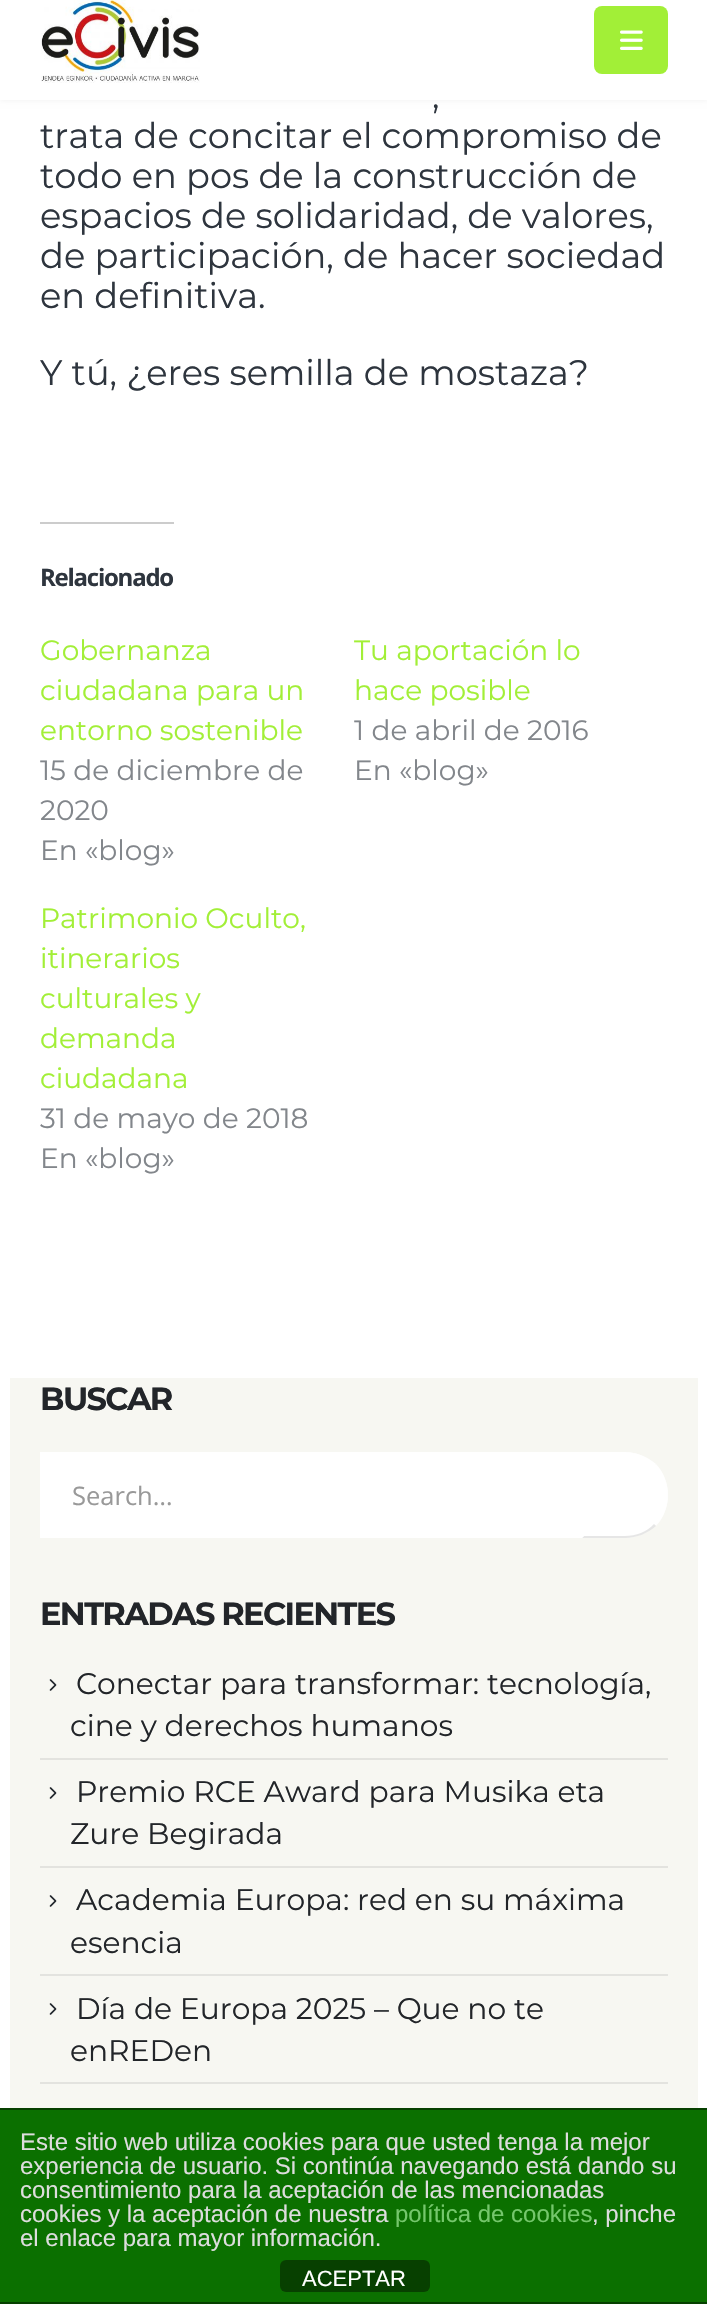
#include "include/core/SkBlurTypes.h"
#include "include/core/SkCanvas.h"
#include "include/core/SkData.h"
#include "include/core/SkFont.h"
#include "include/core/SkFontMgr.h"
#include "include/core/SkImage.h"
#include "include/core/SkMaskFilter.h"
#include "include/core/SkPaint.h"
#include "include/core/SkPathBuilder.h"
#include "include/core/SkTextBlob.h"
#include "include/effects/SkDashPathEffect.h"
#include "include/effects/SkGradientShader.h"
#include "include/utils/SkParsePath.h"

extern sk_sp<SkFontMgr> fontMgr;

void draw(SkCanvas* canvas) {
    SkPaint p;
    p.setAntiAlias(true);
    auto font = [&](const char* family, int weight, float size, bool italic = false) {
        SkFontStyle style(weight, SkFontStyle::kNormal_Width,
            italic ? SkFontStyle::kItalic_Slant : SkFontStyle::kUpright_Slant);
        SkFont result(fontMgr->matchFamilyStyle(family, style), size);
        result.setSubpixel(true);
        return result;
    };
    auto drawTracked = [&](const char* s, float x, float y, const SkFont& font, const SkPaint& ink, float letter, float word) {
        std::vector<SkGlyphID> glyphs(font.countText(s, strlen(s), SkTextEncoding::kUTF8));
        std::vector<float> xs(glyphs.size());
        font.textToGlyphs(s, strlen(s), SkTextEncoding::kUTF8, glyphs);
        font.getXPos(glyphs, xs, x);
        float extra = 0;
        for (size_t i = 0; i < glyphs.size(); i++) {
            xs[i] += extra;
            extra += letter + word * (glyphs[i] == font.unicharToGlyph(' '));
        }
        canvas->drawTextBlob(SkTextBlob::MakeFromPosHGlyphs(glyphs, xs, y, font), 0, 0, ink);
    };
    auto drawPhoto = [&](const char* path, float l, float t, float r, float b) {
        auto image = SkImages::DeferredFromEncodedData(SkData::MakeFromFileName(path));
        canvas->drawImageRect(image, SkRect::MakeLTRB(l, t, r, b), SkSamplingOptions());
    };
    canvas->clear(0xFFFFFFFF);
    p.setColor(0x0F000000);
    p.setMaskFilter(SkMaskFilter::MakeBlur(kNormal_SkBlurStyle, 3));
    canvas->drawRect(SkRect::MakeLTRB(0, -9, 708, 100), p);
    p.setMaskFilter(nullptr);
    p.setColor(0xFFFFFFFF);
    canvas->drawRect(SkRect::MakeLTRB(0, 0, 707, 100), p);
    drawPhoto("media/1.png", 41, 0, 200, 83);
    p.setColor(0xFFA2EF37);
    canvas->drawRoundRect(SkRect::MakeLTRB(594, 6, 668, 74), 8, 8, p);
    drawPhoto("media/2.png", 620, 30, 643, 50);
    auto font1 = font("Montserrat", 400, 35.25f);
    p.setColor(0xFF2E353E);
    {
        const struct { const char* s; float x, y; } items[] = {
            {",", 432, 108},
            {"trata de concitar el compromiso de", 40, 148},
            {"todo en pos de la construcción de", 40, 188},
            {"espacios de solidaridad, de valores,", 40, 228},
            {"de participación, de hacer sociedad", 40, 268},
            {"en definitiva.", 40, 308},
            {"Y tú, ¿eres semilla de mostaza?", 40, 385},
        };
        for (auto [s, x, y] : items) {
            canvas->drawString(s, x, y, font1, p);
        }
    }
    p.setColor(0xFFCCCCCC);
    canvas->drawRect(SkRect::MakeLTRB(40, 522, 174, 524), p);
    auto font2 = font("Open Sans", 700, 24);
    p.setColor(0xFF2E353E);
    drawTracked("Relacionado", 40, 586, font2, p, -1.25f, 0);
    auto font3 = font("Montserrat", 400, 28);
    p.setColor(0xFFA2EF37);
    {
        const struct { const char* s; float x, y; } items[] = {
            {"Gobernanza", 40, 660},
            {"ciudadana para un", 40, 700},
            {"entorno sostenible", 40, 740},
        };
        for (auto [s, x, y] : items) {
            canvas->drawString(s, x, y, font3, p);
        }
    }
    p.setColor(0xFF82868B);
    {
        const struct { const char* s; float x, y; } items[] = {
            {"15 de diciembre de", 40, 780},
            {"2020", 40, 820},
            {"En «blog»", 40, 860},
        };
        for (auto [s, x, y] : items) {
            canvas->drawString(s, x, y, font3, p);
        }
    }
    p.setColor(0xFFA2EF37);
    canvas->drawString("Tu aportación lo", 354, 660, font3, p);
    canvas->drawString("hace posible", 354, 700, font3, p);
    p.setColor(0xFF82868B);
    canvas->drawString("1 de abril de 2016", 354, 740, font3, p);
    canvas->drawString("En «blog»", 354, 780, font3, p);
    p.setColor(0xFFA2EF37);
    {
        const struct { const char* s; float x, y; } items[] = {
            {"Patrimonio Oculto,", 40, 928},
            {"itinerarios", 40, 968},
            {"culturales y", 40, 1008},
            {"demanda", 40, 1048},
            {"ciudadana", 40, 1088},
        };
        for (auto [s, x, y] : items) {
            canvas->drawString(s, x, y, font3, p);
        }
    }
    p.setColor(0xFF82868B);
    canvas->drawString("31 de mayo de 2018", 40, 1128, font3, p);
    canvas->drawString("En «blog»", 40, 1168, font3, p);
    p.setColor(0xFFF7F7F2);
    canvas->drawRect(SkRect::MakeLTRB(10, 1378, 698, 2108), p);
    auto font4 = font("Montserrat", 700, 32);
    p.setColor(0xFF222529);
    drawTracked("BUSCAR", 40, 1410, font4, p, -1.6f, 0);
    p.setColor(0xFFFFFFFF);
    canvas->drawRect(SkRect::MakeLTRB(40, 1452, 582, 1538), p);
    auto font5 = font("Open Sans", 400, 25.5f);
    p.setColor(0xFF999999);
    canvas->drawString("Search…", 72, 1505, font5, p);
    p.setColor(0xFFFFFFFF);
    canvas->drawPath(SkPathBuilder().moveTo(582, 1452).lineTo(625, 1452).cubicTo(648.5f, 1452, 668, 1471.5f, 668, 1495).cubicTo(668, 1518.5f, 648.5f, 1538, 625, 1538).lineTo(582, 1538).close().detach(), p);
    canvas->drawPath(SkPathBuilder().moveTo(582, 1452).lineTo(584, 1454).lineTo(625, 1454).cubicTo(636, 1454, 647, 1458, 654, 1466).lineTo(656, 1464).cubicTo(648, 1457, 637, 1452, 625, 1452).close().detach(), p);
    canvas->drawPath(SkPathBuilder().moveTo(656, 1464).cubicTo(672, 1481, 672, 1509, 656, 1526).lineTo(654, 1524).cubicTo(670, 1508, 670, 1482, 654, 1466).close().detach(), p);
    p.setColor(0xFFE6E6E6);
    canvas->drawPath(SkPathBuilder().moveTo(625, 1538).cubicTo(637, 1538, 648, 1533, 656, 1526).lineTo(654, 1524).cubicTo(647, 1532, 636, 1536, 625, 1536).lineTo(584, 1536).lineTo(582, 1538).close().detach(), p);
    p.setColor(0xFFFFFFFF);
    canvas->drawPath(SkPathBuilder().moveTo(582, 1452).lineTo(582, 1538).lineTo(584, 1536).lineTo(584, 1454).close().detach(), p);
    p.setColor(0xFF222529);
    drawTracked("ENTRADAS RECIENTES", 40, 1625, font4, p, -1.6f, 0);
    drawPhoto("media/3.png", 49, 1679, 57, 1691);
    auto font6 = font("Montserrat", 400, 29.75f);
    canvas->drawString("Conectar para transformar: tecnología,", 76, 1694, font6, p);
    canvas->drawString("cine y derechos humanos", 70, 1736, font6, p);
    p.setColor(0xFFE3E3DF);
    canvas->drawRect(SkRect::MakeLTRB(40, 1758, 668, 1760), p);
    drawPhoto("media/3.png", 49, 1787, 57, 1799);
    p.setColor(0xFF222529);
    canvas->drawString("Premio RCE Award para Musika eta", 76, 1802, font6, p);
    canvas->drawString("Zure Begirada", 70, 1844, font6, p);
    p.setColor(0xFFE3E3DF);
    canvas->drawRect(SkRect::MakeLTRB(40, 1866, 668, 1868), p);
    drawPhoto("media/3.png", 49, 1895, 57, 1907);
    p.setColor(0xFF222529);
    canvas->drawString("Academia Europa: red en su máxima", 76, 1910, font6, p);
    canvas->drawString("esencia", 70, 1953, font6, p);
    p.setColor(0xFFE3E3DF);
    canvas->drawRect(SkRect::MakeLTRB(40, 1974, 668, 1976), p);
    drawPhoto("media/3.png", 49, 2003, 57, 2015);
    p.setColor(0xFF222529);
    canvas->drawString("Día de Europa 2025 – Que no te", 76, 2019, font6, p);
    canvas->drawString("enREDen", 70, 2061, font6, p);
    {
        const struct { float l, t, r, b; SkColor color; } items[] = {
            {40, 2082, 668, 2084, 0xFFE3E3DF},
            {0, 2110, 707, 2302, 0xFF0B7000},
            {0, 2108, 707, 2110, 0xFF064000},
            {0, 2302, 707, 2304, 0xFF064000},
        };
        for (auto [l, t, r, b, color] : items) {
            p.setColor(color);
            canvas->drawRect(SkRect::MakeLTRB(l, t, r, b), p);
        }
    }
    auto font7 = font("Liberation Sans", 400, 24);
    p.setColor(0xFFDDDDDD);
    {
        const struct { const char* s; float x, y; } items[] = {
            {"Este sitio web utiliza cookies para que usted tenga la mejor", 20, 2150},
            {"experiencia de usuario. Si continúa navegando está dando su", 20, 2174},
            {"consentimiento para la aceptación de las mencionadas", 20, 2198},
            {"cookies y la aceptación de nuestra", 20, 2222},
        };
        for (auto [s, x, y] : items) {
            canvas->drawString(s, x, y, font7, p);
        }
    }
    p.setColor(0xFF75C76C);
    canvas->drawString("política de cookies", 395, 2222, font7, p);
    p.setColor(0xFFDDDDDD);
    canvas->drawString(", pinche", 592, 2222, font7, p);
    canvas->drawString("el enlace para mayor información.", 20, 2246, font7, p);
    p.setColor(0xFF074000);
    canvas->drawRoundRect(SkRect::MakeLTRB(280, 2260, 430, 2292), 6, 6, p);
    auto font8 = font("Liberation Sans", 400, 22);
    p.setColor(0xFFFFFFFF);
    canvas->drawString("ACEPTAR", 302, 2286, font8, p);
}
